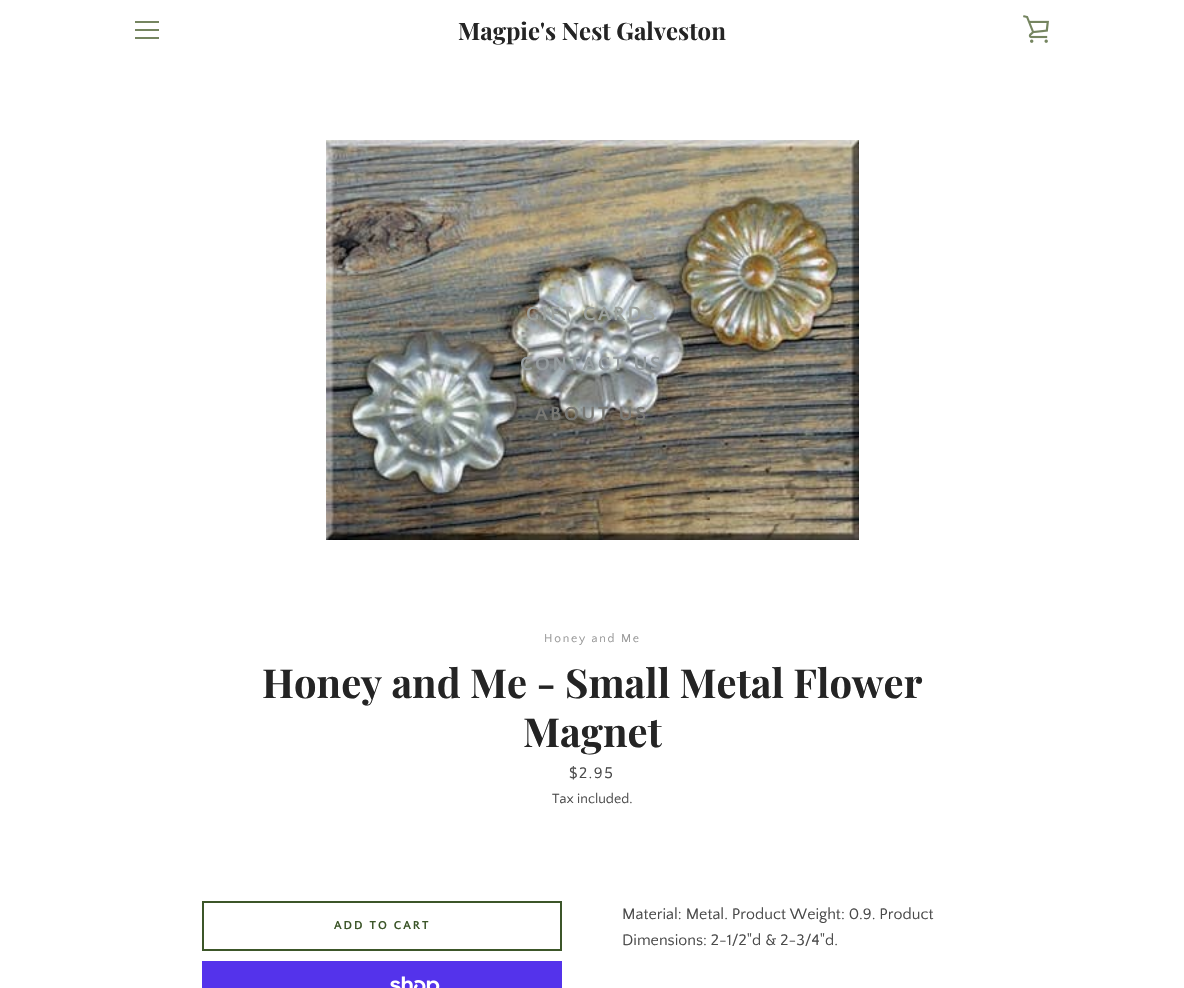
#include "include/core/SkBlurTypes.h"
#include "include/core/SkCanvas.h"
#include "include/core/SkData.h"
#include "include/core/SkFont.h"
#include "include/core/SkFontMgr.h"
#include "include/core/SkImage.h"
#include "include/core/SkMaskFilter.h"
#include "include/core/SkPaint.h"
#include "include/core/SkPathBuilder.h"
#include "include/core/SkTextBlob.h"
#include "include/effects/SkDashPathEffect.h"
#include "include/effects/SkGradientShader.h"
#include "include/utils/SkParsePath.h"

extern sk_sp<SkFontMgr> fontMgr;

void draw(SkCanvas* canvas) {
    SkPaint p;
    p.setAntiAlias(true);
    auto font = [&](const char* family, int weight, float size, bool italic = false) {
        SkFontStyle style(weight, SkFontStyle::kNormal_Width,
            italic ? SkFontStyle::kItalic_Slant : SkFontStyle::kUpright_Slant);
        SkFont result(fontMgr->matchFamilyStyle(family, style), size);
        result.setSubpixel(true);
        return result;
    };
    auto drawTracked = [&](const char* s, float x, float y, const SkFont& font, const SkPaint& ink, float letter, float word) {
        std::vector<SkGlyphID> glyphs(font.countText(s, strlen(s), SkTextEncoding::kUTF8));
        std::vector<float> xs(glyphs.size());
        font.textToGlyphs(s, strlen(s), SkTextEncoding::kUTF8, glyphs);
        font.getXPos(glyphs, xs, x);
        float extra = 0;
        for (size_t i = 0; i < glyphs.size(); i++) {
            xs[i] += extra;
            extra += letter + word * (glyphs[i] == font.unicharToGlyph(' '));
        }
        canvas->drawTextBlob(SkTextBlob::MakeFromPosHGlyphs(glyphs, xs, y, font), 0, 0, ink);
    };
    auto drawPhoto = [&](const char* path, float l, float t, float r, float b) {
        auto image = SkImages::DeferredFromEncodedData(SkData::MakeFromFileName(path));
        canvas->drawImageRect(image, SkRect::MakeLTRB(l, t, r, b), SkSamplingOptions());
    };
    canvas->clear(0xFFFFFFFF);
    auto font1 = font("Playfair Display", 700, 24);
    p.setColor(0xFF242424);
    canvas->drawString("Magpie's Nest Galveston", 458, 40, font1, p);
    drawPhoto("media/1.png", 1023, 15, 1049, 43);
    {
        const struct { float l, t, r, b; SkColor color; } items[] = {
            {135, 21, 159, 23, 0xFF758560},
            {135, 29, 159, 31, 0xFF758560},
            {135, 37, 159, 39, 0xFF758560},
        };
        for (auto [l, t, r, b, color] : items) {
            p.setColor(color);
            canvas->drawRect(SkRect::MakeLTRB(l, t, r, b), p);
        }
    }
    drawPhoto("media/2.png", 326, 140, 859, 540);
    auto font2 = font("Quattrocento Sans", 700, 20);
    p.setColor(0xFF9CA19D);
    drawTracked("GIFT CARDS", 526, 320, font2, p, 2.5f, 0);
    p.setColor(0xFF969C9F);
    drawTracked("CONTACT US", 520, 370, font2, p, 2.5f, 0);
    p.setColor(0xFF787874);
    drawTracked("ABOUT US", 535, 420, font2, p, 2.5f, 0);
    auto font3 = font("Quattrocento Sans", 400, 12);
    p.setColor(0xFF979797);
    drawTracked("Honey and Me", 544, 642, font3, p, 1.75f, 0);
    auto font4 = font("Playfair Display", 700, 40);
    p.setColor(0xFF242424);
    canvas->drawString("Honey and Me - Small Metal Flower", 262, 698, font4, p);
    canvas->drawString("Magnet", 523, 747, font4, p);
    auto font5 = font("Quattrocento Sans", 400, 16);
    p.setColor(0xFF4A4A4A);
    drawTracked("$2.95", 569, 778, font5, p, 1.5f, 0);
    auto font6 = font("Quattrocento Sans", 400, 14);
    canvas->drawString("Tax included.", 552, 803, font6, p);
    p.setStyle(SkPaint::kStroke_Style);
    p.setStrokeWidth(2);
    p.setColor(0xFF3C5629);
    canvas->drawRect(SkRect::MakeLTRB(203, 902, 561, 950), p);
    auto font7 = font("Quattrocento Sans", 700, 12);
    p.setStyle(SkPaint::kFill_Style);
    drawTracked("ADD TO CART", 334, 929, font7, p, 2, 0);
    p.setColor(0xFF5433EB);
    canvas->drawRect(SkRect::MakeLTRB(202, 961, 562, 988), p);
    drawPhoto("media/3.png", 390, 976, 440, 988);
    p.setColor(0xFF4A4A4A);
    canvas->drawString("Material: Metal. Product Weight: 0.9. Product", 622, 919, font5, p);
    canvas->drawString("Dimensions: 2-1/2\"d & 2-3/4\"d.", 622, 945, font5, p);
}
